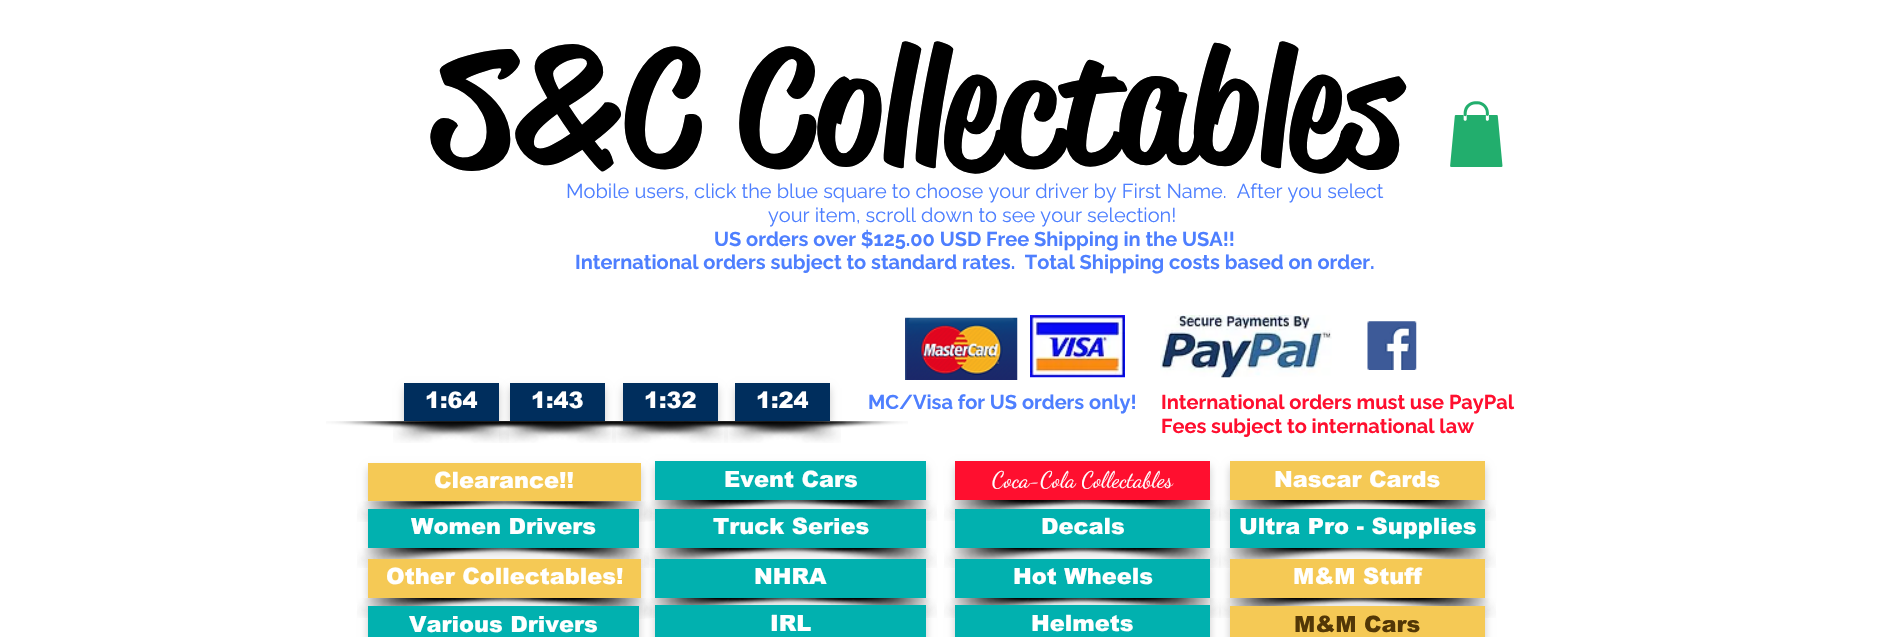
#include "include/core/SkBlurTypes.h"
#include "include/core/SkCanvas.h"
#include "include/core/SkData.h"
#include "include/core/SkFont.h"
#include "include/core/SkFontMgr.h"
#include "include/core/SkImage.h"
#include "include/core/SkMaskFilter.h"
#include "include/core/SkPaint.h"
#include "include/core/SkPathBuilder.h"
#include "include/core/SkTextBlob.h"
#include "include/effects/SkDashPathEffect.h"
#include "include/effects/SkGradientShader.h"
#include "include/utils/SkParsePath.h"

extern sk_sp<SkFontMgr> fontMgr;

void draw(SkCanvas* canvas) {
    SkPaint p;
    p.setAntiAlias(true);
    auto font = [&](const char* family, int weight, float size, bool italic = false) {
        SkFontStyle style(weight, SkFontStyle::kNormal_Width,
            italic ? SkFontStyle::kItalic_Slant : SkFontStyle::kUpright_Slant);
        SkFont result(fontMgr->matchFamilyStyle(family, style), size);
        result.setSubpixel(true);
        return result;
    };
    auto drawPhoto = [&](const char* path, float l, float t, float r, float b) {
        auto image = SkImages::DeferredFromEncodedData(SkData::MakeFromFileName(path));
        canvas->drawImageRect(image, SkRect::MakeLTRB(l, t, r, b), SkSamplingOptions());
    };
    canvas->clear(0xFFFFFFFF);
    auto font1 = font("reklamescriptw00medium", 500, 160);
    p.setColor(0xFF000000);
    canvas->drawString("S&C Collectables", 434, 161, font1, p);
    drawPhoto("media/1.png", 1450, 101, 1503, 167);
    auto font2 = font("Raleway", 400, 20);
    p.setColor(0xFF4E7FFF);
    canvas->drawString("Mobile users, click the blue square to choose your driver by First Name.  After you select", 566, 198, font2, p);
    canvas->drawString("your item, scroll down to see your selection!", 768, 222, font2, p);
    auto font3 = font("Raleway", 700, 20);
    canvas->drawString("US orders over $125.00 USD Free Shipping in the USA!!", 714, 246, font3, p);
    canvas->drawString("International orders subject to standard rates.  Total Shipping costs based on order.", 575, 269, font3, p);
    drawPhoto("media/2.png", 905, 317, 1018, 380);
    drawPhoto("media/3.png", 1030, 315, 1125, 378);
    drawPhoto("media/4.png", 1160, 315, 1332, 378);
    drawPhoto("media/5.png", 1367, 321, 1417, 370);
    drawPhoto("media/7.png", 393, 421, 577, 443);
    drawPhoto("media/6.png", 326, 421, 509, 443);
    p.setColor(0x33000000);
    p.setMaskFilter(SkMaskFilter::MakeBlur(kNormal_SkBlurStyle, 4));
    canvas->drawRect(SkRect::MakeLTRB(404, 388, 499, 426), p);
    p.setMaskFilter(nullptr);
    p.setColor(0xFF002E5D);
    canvas->drawRect(SkRect::MakeLTRB(404, 383, 499, 421), p);
    auto font4 = font("arial", 900, 22.5f);
    p.setColor(0xFFFFFFFF);
    canvas->drawString("1:64", 425, 408, font4, p);
    drawPhoto("media/9.png", 499, 421, 683, 443);
    drawPhoto("media/8.png", 460, 421, 616, 443);
    p.setColor(0x33000000);
    p.setMaskFilter(SkMaskFilter::MakeBlur(kNormal_SkBlurStyle, 4));
    canvas->drawRect(SkRect::MakeLTRB(510, 388, 605, 426), p);
    p.setMaskFilter(nullptr);
    p.setColor(0xFF002E5D);
    canvas->drawRect(SkRect::MakeLTRB(510, 383, 605, 421), p);
    p.setColor(0xFFFFFFFF);
    canvas->drawString("1:43", 531, 408, font4, p);
    drawPhoto("media/11.png", 612, 421, 796, 443);
    drawPhoto("media/10.png", 572, 421, 728, 443);
    p.setColor(0x33000000);
    p.setMaskFilter(SkMaskFilter::MakeBlur(kNormal_SkBlurStyle, 4));
    canvas->drawRect(SkRect::MakeLTRB(623, 388, 718, 426), p);
    p.setMaskFilter(nullptr);
    p.setColor(0xFF002E5D);
    canvas->drawRect(SkRect::MakeLTRB(623, 383, 718, 421), p);
    p.setColor(0xFFFFFFFF);
    canvas->drawString("1:32", 644, 408, font4, p);
    drawPhoto("media/13.png", 724, 421, 908, 443);
    drawPhoto("media/12.png", 684, 421, 841, 443);
    p.setColor(0x33000000);
    p.setMaskFilter(SkMaskFilter::MakeBlur(kNormal_SkBlurStyle, 4));
    canvas->drawRect(SkRect::MakeLTRB(735, 388, 830, 426), p);
    p.setMaskFilter(nullptr);
    p.setColor(0xFF002E5D);
    canvas->drawRect(SkRect::MakeLTRB(735, 383, 830, 421), p);
    p.setColor(0xFFFFFFFF);
    canvas->drawString("1:24", 756, 408, font4, p);
    p.setColor(0xFF4E7FFF);
    canvas->drawString("MC/Visa for US orders only!", 868, 409, font3, p);
    p.setColor(0xFFFF0F2F);
    canvas->drawString("International orders must use PayPal", 1161, 409, font3, p);
    canvas->drawString("Fees subject to international law", 1161, 433, font3, p);
    drawPhoto("media/14.png", 357, 501, 541, 522);
    drawPhoto("media/15.png", 478, 501, 652, 522);
    p.setColor(0x33000000);
    p.setMaskFilter(SkMaskFilter::MakeBlur(kNormal_SkBlurStyle, 4));
    canvas->drawRect(SkRect::MakeLTRB(368, 468, 641, 506), p);
    p.setMaskFilter(nullptr);
    p.setColor(0xFFF5C955);
    canvas->drawRect(SkRect::MakeLTRB(368, 463, 641, 501), p);
    p.setColor(0xFFFFFFFF);
    canvas->drawString("Clearance!!", 434, 488, font4, p);
    drawPhoto("media/22.png", 357, 548, 542, 568);
    drawPhoto("media/23.png", 476, 548, 649, 568);
    p.setColor(0x33000000);
    p.setMaskFilter(SkMaskFilter::MakeBlur(kNormal_SkBlurStyle, 4));
    canvas->drawRect(SkRect::MakeLTRB(368, 514, 639, 553), p);
    p.setMaskFilter(nullptr);
    drawPhoto("media/16.png", 644, 500, 836, 521);
    drawPhoto("media/17.png", 766, 500, 937, 521);
    p.setMaskFilter(SkMaskFilter::MakeBlur(kNormal_SkBlurStyle, 4));
    canvas->drawRect(SkRect::MakeLTRB(655, 466, 926, 505), p);
    p.setMaskFilter(nullptr);
    p.setColor(0xFF01B1AF);
    canvas->drawRect(SkRect::MakeLTRB(655, 461, 926, 500), p);
    p.setColor(0xFFFFFFFF);
    canvas->drawString("Event Cars", 724, 487, font4, p);
    drawPhoto("media/18.png", 944, 500, 1133, 521);
    drawPhoto("media/19.png", 1055, 500, 1221, 521);
    p.setColor(0x33000000);
    p.setMaskFilter(SkMaskFilter::MakeBlur(kNormal_SkBlurStyle, 4));
    canvas->drawRect(SkRect::MakeLTRB(955, 466, 1210, 505), p);
    p.setMaskFilter(nullptr);
    p.setColor(0xFFFF0F2F);
    canvas->drawRect(SkRect::MakeLTRB(955, 461, 1210, 500), p);
    auto font5 = font("Dancing Script", 400, 22.5f);
    p.setColor(0xFFFFFFFF);
    canvas->drawString("Coca-Cola Collectables", 992, 487, font5, p);
    drawPhoto("media/26.png", 944, 548, 1130, 568);
    drawPhoto("media/27.png", 1048, 548, 1221, 568);
    p.setColor(0x33000000);
    p.setMaskFilter(SkMaskFilter::MakeBlur(kNormal_SkBlurStyle, 4));
    canvas->drawRect(SkRect::MakeLTRB(955, 514, 1210, 553), p);
    p.setMaskFilter(nullptr);
    drawPhoto("media/20.png", 1219, 500, 1408, 521);
    drawPhoto("media/21.png", 1330, 500, 1496, 521);
    p.setMaskFilter(SkMaskFilter::MakeBlur(kNormal_SkBlurStyle, 4));
    canvas->drawRect(SkRect::MakeLTRB(1230, 466, 1485, 505), p);
    p.setMaskFilter(nullptr);
    p.setColor(0xFFF5C955);
    canvas->drawRect(SkRect::MakeLTRB(1230, 461, 1485, 500), p);
    p.setColor(0xFFFFFFFF);
    canvas->drawString("Nascar Cards", 1274, 487, font4, p);
    p.setColor(0xFF01B1AF);
    canvas->drawRect(SkRect::MakeLTRB(368, 509, 639, 548), p);
    p.setColor(0xFFFFFFFF);
    canvas->drawString("Women Drivers", 411, 534, font4, p);
    drawPhoto("media/22.png", 357, 598, 542, 618);
    drawPhoto("media/30.png", 478, 598, 652, 619);
    p.setColor(0x33000000);
    p.setMaskFilter(SkMaskFilter::MakeBlur(kNormal_SkBlurStyle, 4));
    canvas->drawRect(SkRect::MakeLTRB(368, 564, 641, 603), p);
    p.setMaskFilter(nullptr);
    drawPhoto("media/24.png", 644, 548, 830, 568);
    drawPhoto("media/25.png", 763, 548, 937, 568);
    p.setMaskFilter(SkMaskFilter::MakeBlur(kNormal_SkBlurStyle, 4));
    canvas->drawRect(SkRect::MakeLTRB(655, 514, 926, 553), p);
    p.setMaskFilter(nullptr);
    p.setColor(0xFF01B1AF);
    canvas->drawRect(SkRect::MakeLTRB(655, 509, 926, 548), p);
    p.setColor(0xFFFFFFFF);
    canvas->drawString("Truck Series", 713, 534, font4, p);
    p.setColor(0xFF01B1AF);
    canvas->drawRect(SkRect::MakeLTRB(955, 509, 1210, 548), p);
    p.setColor(0xFFFFFFFF);
    canvas->drawString("Decals", 1041, 534, font4, p);
    drawPhoto("media/26.png", 944, 598, 1130, 618);
    drawPhoto("media/27.png", 1048, 598, 1221, 618);
    p.setColor(0x33000000);
    p.setMaskFilter(SkMaskFilter::MakeBlur(kNormal_SkBlurStyle, 4));
    canvas->drawRect(SkRect::MakeLTRB(955, 564, 1210, 603), p);
    p.setMaskFilter(nullptr);
    drawPhoto("media/28.png", 1219, 548, 1405, 568);
    drawPhoto("media/29.png", 1323, 548, 1496, 568);
    p.setMaskFilter(SkMaskFilter::MakeBlur(kNormal_SkBlurStyle, 4));
    canvas->drawRect(SkRect::MakeLTRB(1230, 514, 1485, 553), p);
    p.setMaskFilter(nullptr);
    p.setColor(0xFF01B1AF);
    canvas->drawRect(SkRect::MakeLTRB(1230, 509, 1485, 548), p);
    p.setColor(0xFFFFFFFF);
    canvas->drawString("Ultra Pro - Supplies", 1239, 534, font4, p);
    p.setColor(0xFFF5C955);
    canvas->drawRect(SkRect::MakeLTRB(368, 559, 641, 598), p);
    p.setColor(0xFFFFFFFF);
    canvas->drawString("Other Collectables!", 386, 584, font4, p);
    p.setColor(0x33000000);
    p.setMaskFilter(SkMaskFilter::MakeBlur(kNormal_SkBlurStyle, 4));
    canvas->drawRect(SkRect::MakeLTRB(368, 611, 639, 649), p);
    p.setMaskFilter(nullptr);
    drawPhoto("media/31.png", 644, 598, 830, 618);
    drawPhoto("media/25.png", 763, 598, 937, 618);
    p.setMaskFilter(SkMaskFilter::MakeBlur(kNormal_SkBlurStyle, 4));
    canvas->drawRect(SkRect::MakeLTRB(655, 564, 926, 603), p);
    p.setMaskFilter(nullptr);
    p.setColor(0xFF01B1AF);
    canvas->drawRect(SkRect::MakeLTRB(655, 559, 926, 598), p);
    p.setColor(0xFFFFFFFF);
    canvas->drawString("NHRA", 754, 584, font4, p);
    p.setColor(0xFF01B1AF);
    canvas->drawRect(SkRect::MakeLTRB(955, 559, 1210, 598), p);
    p.setColor(0xFFFFFFFF);
    canvas->drawString("Hot Wheels", 1013, 584, font4, p);
    p.setColor(0x33000000);
    p.setMaskFilter(SkMaskFilter::MakeBlur(kNormal_SkBlurStyle, 4));
    canvas->drawRect(SkRect::MakeLTRB(955, 610, 1210, 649), p);
    p.setMaskFilter(nullptr);
    drawPhoto("media/28.png", 1219, 598, 1405, 618);
    drawPhoto("media/29.png", 1323, 598, 1496, 618);
    p.setMaskFilter(SkMaskFilter::MakeBlur(kNormal_SkBlurStyle, 4));
    canvas->drawRect(SkRect::MakeLTRB(1230, 564, 1485, 603), p);
    p.setMaskFilter(nullptr);
    p.setColor(0xFFF5C955);
    canvas->drawRect(SkRect::MakeLTRB(1230, 559, 1485, 598), p);
    p.setColor(0xFFFFFFFF);
    canvas->drawString("M&M Stuff", 1293, 584, font4, p);
    p.setColor(0xFF01B1AF);
    canvas->drawRect(SkRect::MakeLTRB(368, 606, 639, 637), p);
    p.setColor(0xFFFFFFFF);
    canvas->drawString("Various Drivers", 409, 632, font4, p);
    p.setColor(0x33000000);
    p.setMaskFilter(SkMaskFilter::MakeBlur(kNormal_SkBlurStyle, 4));
    canvas->drawRect(SkRect::MakeLTRB(655, 610, 926, 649), p);
    p.setMaskFilter(nullptr);
    p.setColor(0xFF01B1AF);
    canvas->drawRect(SkRect::MakeLTRB(655, 605, 926, 637), p);
    p.setColor(0xFFFFFFFF);
    canvas->drawString("IRL", 770, 631, font4, p);
    p.setColor(0xFF01B1AF);
    canvas->drawRect(SkRect::MakeLTRB(955, 605, 1210, 637), p);
    p.setColor(0xFFFFFFFF);
    canvas->drawString("Helmets", 1031, 631, font4, p);
    p.setColor(0x33000000);
    p.setMaskFilter(SkMaskFilter::MakeBlur(kNormal_SkBlurStyle, 4));
    canvas->drawRect(SkRect::MakeLTRB(1230, 611, 1485, 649), p);
    p.setMaskFilter(nullptr);
    p.setColor(0xFFF5C955);
    canvas->drawRect(SkRect::MakeLTRB(1230, 606, 1485, 637), p);
    p.setColor(0xFF523706);
    canvas->drawString("M&M Cars", 1294, 632, font4, p);
}
